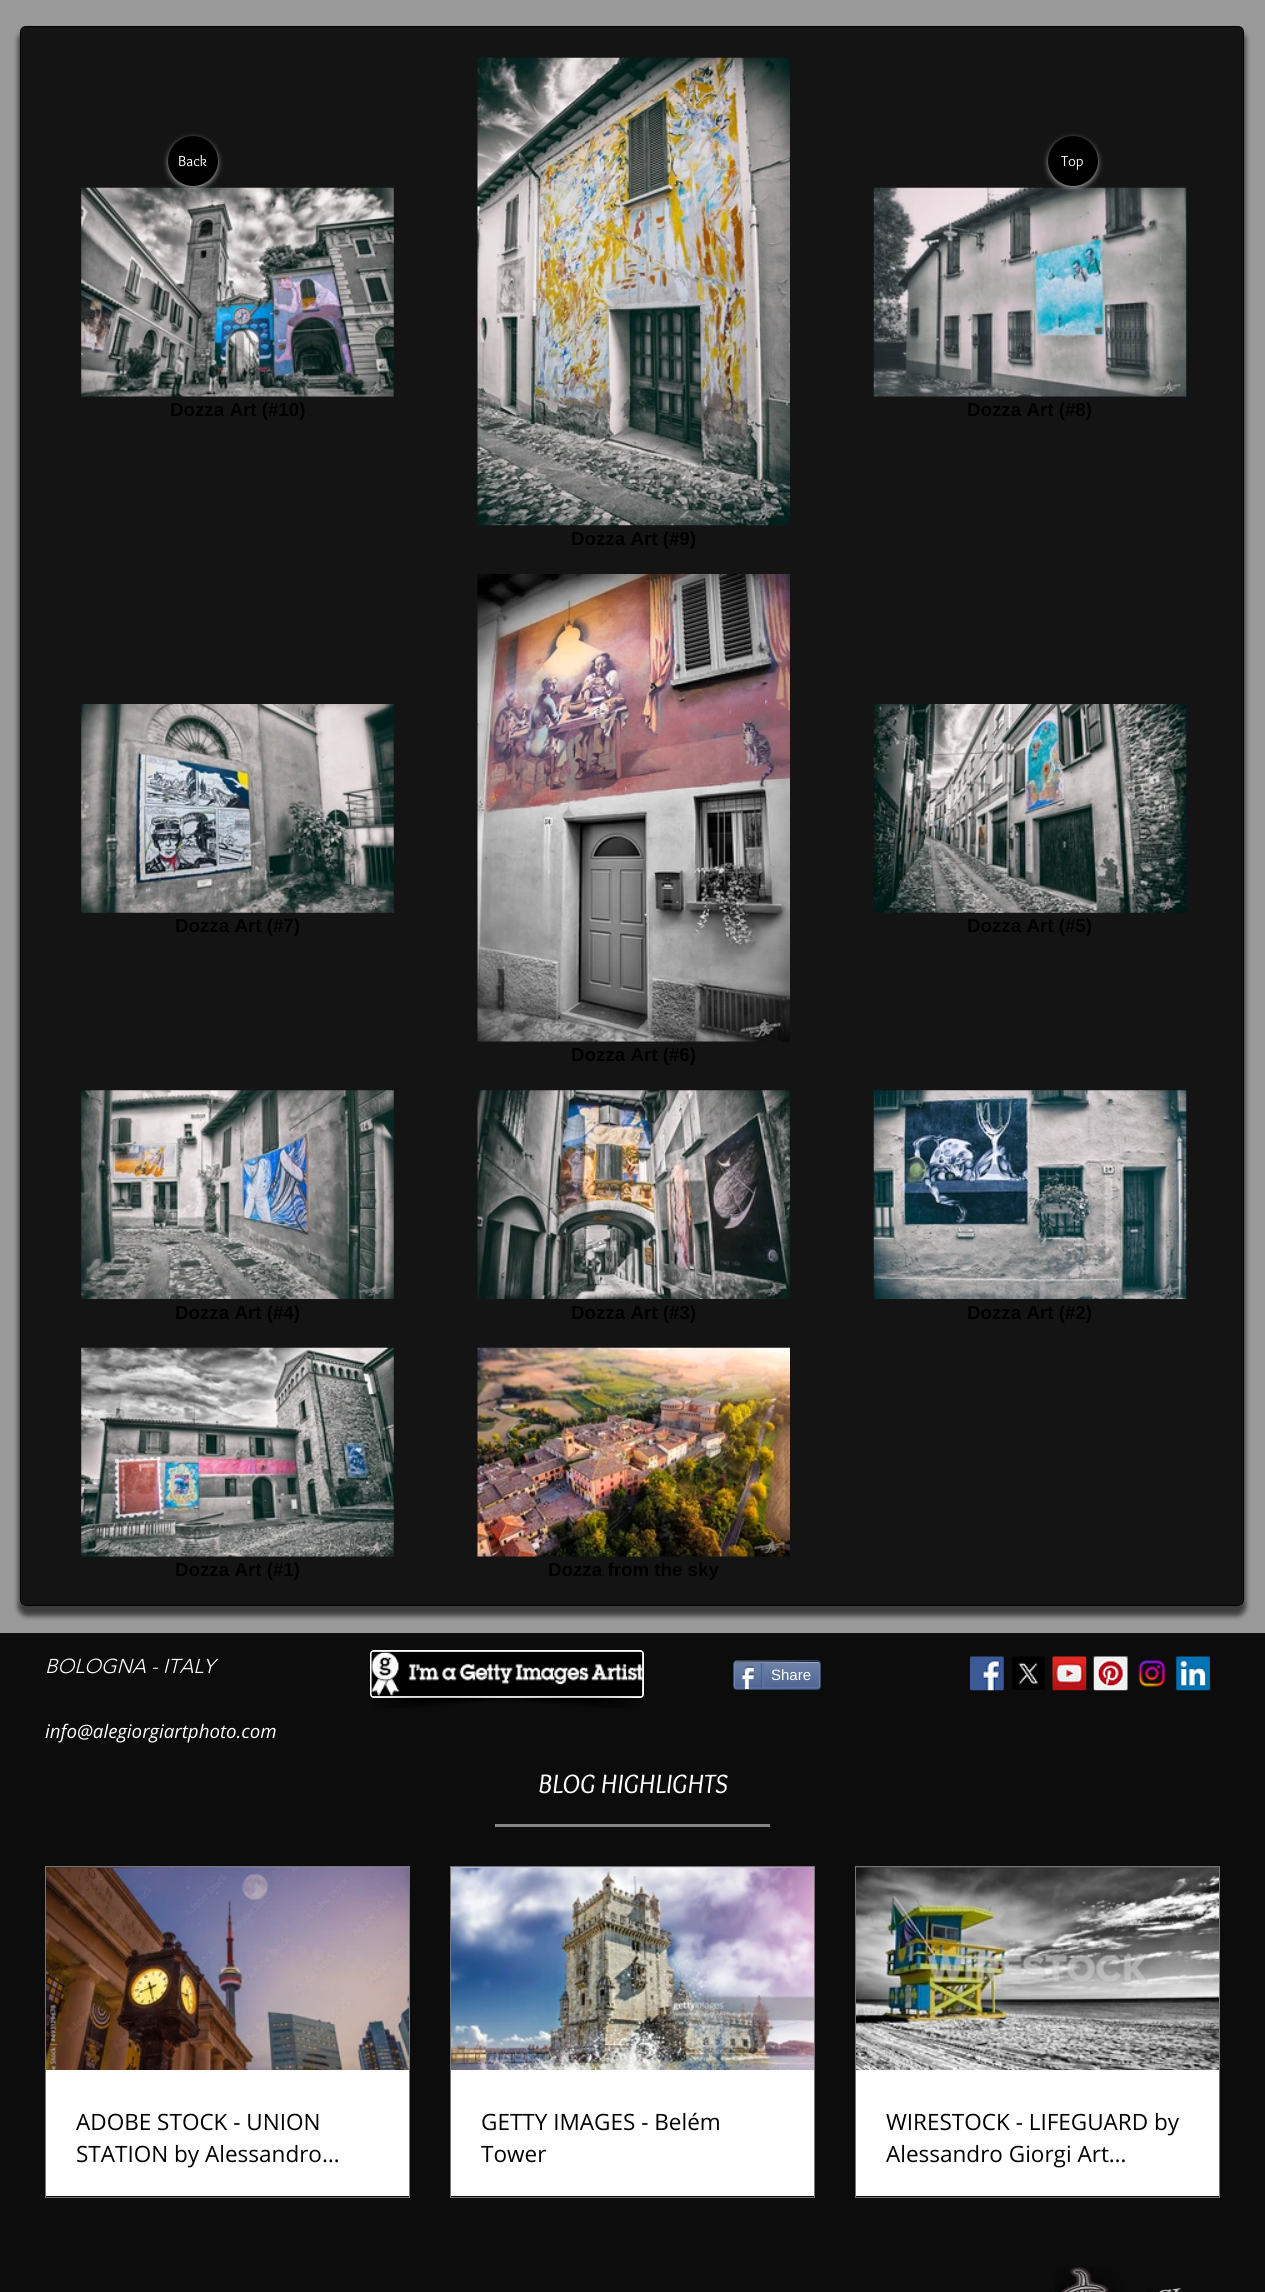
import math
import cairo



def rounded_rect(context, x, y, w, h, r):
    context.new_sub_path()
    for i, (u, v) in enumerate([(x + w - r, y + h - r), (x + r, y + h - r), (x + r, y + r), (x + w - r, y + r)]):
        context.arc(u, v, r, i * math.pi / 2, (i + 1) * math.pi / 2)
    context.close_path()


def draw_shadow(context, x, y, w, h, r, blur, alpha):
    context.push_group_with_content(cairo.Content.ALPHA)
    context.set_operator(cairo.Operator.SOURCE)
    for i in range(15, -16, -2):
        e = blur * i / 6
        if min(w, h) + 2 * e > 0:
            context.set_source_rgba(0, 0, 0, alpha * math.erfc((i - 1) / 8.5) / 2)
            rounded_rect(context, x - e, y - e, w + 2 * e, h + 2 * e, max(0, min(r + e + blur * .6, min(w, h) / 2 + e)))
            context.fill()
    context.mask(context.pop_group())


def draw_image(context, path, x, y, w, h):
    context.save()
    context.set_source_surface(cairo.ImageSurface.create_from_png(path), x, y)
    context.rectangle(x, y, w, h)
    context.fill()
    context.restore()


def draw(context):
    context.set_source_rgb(153 / 255, 153 / 255, 153 / 255)
    context.paint()
    context.save()
    context.set_fill_rule(cairo.FillRule.EVEN_ODD)
    context.new_path()
    context.move_to(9, 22)
    context.line_to(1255, 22)
    context.line_to(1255, 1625)
    context.line_to(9, 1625)
    context.close_path()
    context.move_to(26, 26)
    context.line_to(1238, 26)
    context.curve_to(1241.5, 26, 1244, 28.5, 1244, 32)
    context.line_to(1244, 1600)
    context.curve_to(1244, 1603.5, 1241.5, 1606, 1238, 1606)
    context.line_to(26, 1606)
    context.curve_to(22.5, 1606, 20, 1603.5, 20, 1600)
    context.line_to(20, 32)
    context.curve_to(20, 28.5, 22.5, 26, 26, 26)
    context.close_path()
    context.clip()
    context.set_source_rgb(0, 0, 0)
    draw_shadow(context, 18, 31, 1228, 1585, 9, 2.5, 0.6)
    context.restore()
    context.set_source_rgba(0, 0, 0, 0.87)
    rounded_rect(context, 20.5, 26.5, 1223, 1579, 5.5)
    context.fill_preserve()
    context.set_source_rgb(0, 0, 0)
    context.set_line_width(1)
    context.stroke()
    draw_image(context, "images/1.png", 81, 187, 313, 210)
    context.set_source_rgb(1, 1, 1)
    draw_shadow(context, 168, 138, 50, 50, 25, 2.5, 0.6)
    context.set_source_rgb(0, 0, 0)
    context.arc(193, 161, 25, 0, 2 * math.pi)
    context.fill()
    draw_image(context, "images/2.png", 873, 187, 314, 210)
    context.set_source_rgb(1, 1, 1)
    draw_shadow(context, 1048, 138, 50, 50, 25, 2.5, 0.6)
    context.set_source_rgb(0, 0, 0)
    context.arc(1073, 161, 25, 0, 2 * math.pi)
    context.fill()
    draw_image(context, "images/3.png", 477, 57, 313, 469)
    draw_image(context, "images/4.png", 81, 704, 313, 209)
    draw_image(context, "images/5.png", 873, 704, 314, 209)
    draw_image(context, "images/6.png", 477, 574, 313, 468)
    draw_image(context, "images/7.png", 81, 1090, 313, 209)
    draw_image(context, "images/8.png", 477, 1090, 313, 209)
    draw_image(context, "images/9.png", 873, 1090, 314, 209)
    draw_image(context, "images/10.png", 81, 1347, 313, 210)
    draw_image(context, "images/11.png", 477, 1347, 313, 210)
    context.set_source_rgb(12 / 255, 12 / 255, 12 / 255)
    context.rectangle(0, 1633, 1265, 659)
    context.fill()
    context.set_source_rgb(1, 1, 1)
    rounded_rect(context, 370.5, 1650.5, 273, 47, 3.5)
    context.fill_preserve()
    context.stroke()
    draw_image(context, "images/12.png", 371, 1651, 272, 46)
    draw_image(context, "images/13.png", 374, 1697, 155, 11)
    draw_image(context, "images/14.png", 485, 1697, 154, 11)
    rounded_rect(context, 733.5, 1660.5, 87, 29, 3.5)
    context.set_source_rgb(45 / 255, 69 / 255, 101 / 255)
    context.stroke()
    draw_image(context, "images/15.png", 733, 1662, 87, 27)
    context.new_path()
    context.move_to(735, 1662.5)
    context.line_to(736, 1662)
    context.line_to(819, 1662.5)
    context.set_source_rgb(154 / 255, 171 / 255, 198 / 255)
    context.set_line_width(1.2)
    context.stroke()
    context.new_path()
    context.move_to(819, 1662.5)
    context.line_to(819.5, 1664)
    context.line_to(819.5, 1686)
    context.line_to(819, 1687.5)
    context.set_source_rgb(111 / 255, 131 / 255, 173 / 255)
    context.stroke()
    context.new_path()
    context.move_to(819, 1687.5)
    context.line_to(750, 1688)
    context.line_to(736, 1688)
    context.line_to(735, 1687.5)
    context.set_source_rgb(97 / 255, 118 / 255, 163 / 255)
    context.stroke()
    context.new_path()
    context.move_to(735, 1687.5)
    context.line_to(734.5, 1686)
    context.line_to(734.5, 1664)
    context.line_to(735, 1662.5)
    context.set_source_rgb(111 / 255, 131 / 255, 173 / 255)
    context.stroke()
    draw_image(context, "images/16.png", 741, 1666, 13, 23)
    context.set_source_rgb(66 / 255, 94 / 255, 133 / 255)
    context.rectangle(761, 1663, 1, 26)
    context.fill()
    context.set_source_rgb(97 / 255, 118 / 255, 163 / 255)
    context.rectangle(763, 1663, 1, 25)
    context.fill()
    draw_image(context, "images/17.png", 970, 1656, 34, 35)
    draw_image(context, "images/18.png", 1011, 1656, 34, 34)
    draw_image(context, "images/19.png", 1052, 1656, 35, 35)
    draw_image(context, "images/20.png", 1093, 1656, 35, 35)
    draw_image(context, "images/21.png", 1138, 1660, 28, 27)
    draw_image(context, "images/22.png", 1176, 1656, 34, 35)
    context.set_source_rgb(134 / 255, 134 / 255, 134 / 255)
    context.rectangle(495, 1824, 275, 3)
    context.fill()
    context.rectangle(45.5, 1866.5, 364, 331)
    context.set_source_rgb(118 / 255, 118 / 255, 118 / 255)
    context.set_line_width(1)
    context.stroke()
    draw_image(context, "images/23.png", 46, 1867, 363, 1)
    draw_image(context, "images/24.png", 46, 1868, 363, 202)
    context.set_source_rgb(1, 1, 1)
    context.rectangle(46, 2070, 363, 126)
    context.fill()
    context.rectangle(450.5, 1866.5, 364, 331)
    context.set_source_rgb(118 / 255, 118 / 255, 118 / 255)
    context.stroke()
    draw_image(context, "images/25.png", 451, 1867, 363, 1)
    draw_image(context, "images/26.png", 451, 1868, 363, 202)
    context.set_source_rgb(1, 1, 1)
    context.rectangle(451, 2070, 363, 126)
    context.fill()
    context.rectangle(855.5, 1866.5, 364, 331)
    context.set_source_rgb(118 / 255, 118 / 255, 118 / 255)
    context.stroke()
    draw_image(context, "images/27.png", 856, 1867, 363, 1)
    draw_image(context, "images/28.png", 856, 1868, 363, 202)
    context.set_source_rgb(1, 1, 1)
    context.rectangle(856, 2070, 363, 126)
    context.fill()
    draw_image(context, "images/29.png", 1055, 2267, 127, 25)
    context.select_font_face("Overlock")
    context.set_font_size(15)
    context.move_to(178, 166)
    context.show_text("Back")
    context.move_to(1061, 166)
    context.show_text("Top")
    context.select_font_face("Liberation Sans", cairo.FontSlant.NORMAL, cairo.FontWeight.BOLD)
    context.set_font_size(18.75)
    context.set_source_rgb(0, 0, 0)
    context.move_to(170, 416)
    context.show_text("Dozza Art (#10)")
    context.move_to(967, 416)
    context.show_text("Dozza Art (#8)")
    context.move_to(571, 545)
    context.show_text("Dozza Art (#9)")
    context.move_to(175, 932)
    context.show_text("Dozza Art (#7)")
    context.move_to(967, 932)
    context.show_text("Dozza Art (#5)")
    context.move_to(571, 1061)
    context.show_text("Dozza Art (#6)")
    context.move_to(175, 1319)
    context.show_text("Dozza Art (#4)")
    context.move_to(571, 1319)
    context.show_text("Dozza Art (#3)")
    context.move_to(967, 1319)
    context.show_text("Dozza Art (#2)")
    context.move_to(175, 1576)
    context.show_text("Dozza Art (#1)")
    context.move_to(548, 1576)
    context.show_text("Dozza from the sky")
    context.select_font_face("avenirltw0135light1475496 Light", cairo.FontSlant.ITALIC)
    context.set_font_size(20)
    context.set_source_rgb(1, 1, 1)
    context.move_to(45, 1673)
    context.show_text("BOLOGNA - ITALY")
    context.select_font_face("Liberation Sans")
    context.set_font_size(15)
    context.move_to(771, 1680)
    context.show_text("Share")
    context.select_font_face("Open Sans", cairo.FontSlant.ITALIC)
    context.set_font_size(18.75)
    context.move_to(45, 1738)
    context.show_text("info@alegiorgiartphoto.com")
    context.select_font_face("Overlock", cairo.FontSlant.ITALIC)
    context.set_font_size(27.5)
    context.move_to(538, 1793)
    context.show_text("BLOG HIGHLIGHTS")
    context.select_font_face("Open Sans")
    context.set_font_size(22.5)
    context.set_source_rgb(0, 0, 0)
    context.move_to(76, 2130)
    context.show_text("ADOBE STOCK - UNION")
    context.move_to(76, 2162)
    context.show_text("STATION by Alessandro…")
    context.move_to(481, 2130)
    context.show_text("GETTY IMAGES - Belém")
    context.move_to(481, 2162)
    context.show_text("Tower")
    context.move_to(886, 2130)
    context.show_text("WIRESTOCK - LIFEGUARD by")
    context.move_to(886, 2162)
    context.show_text("Alessandro Giorgi Art…")


surface = cairo.ImageSurface(cairo.Format.RGB24, 1265, 2292)
context = cairo.Context(surface)
options = cairo.FontOptions()
options.set_hint_metrics(cairo.HintMetrics.OFF)
options.set_hint_style(cairo.HintStyle.NONE)
context.set_font_options(options)
context.set_miter_limit(4)
draw(context)
surface.write_to_png("out.png")
